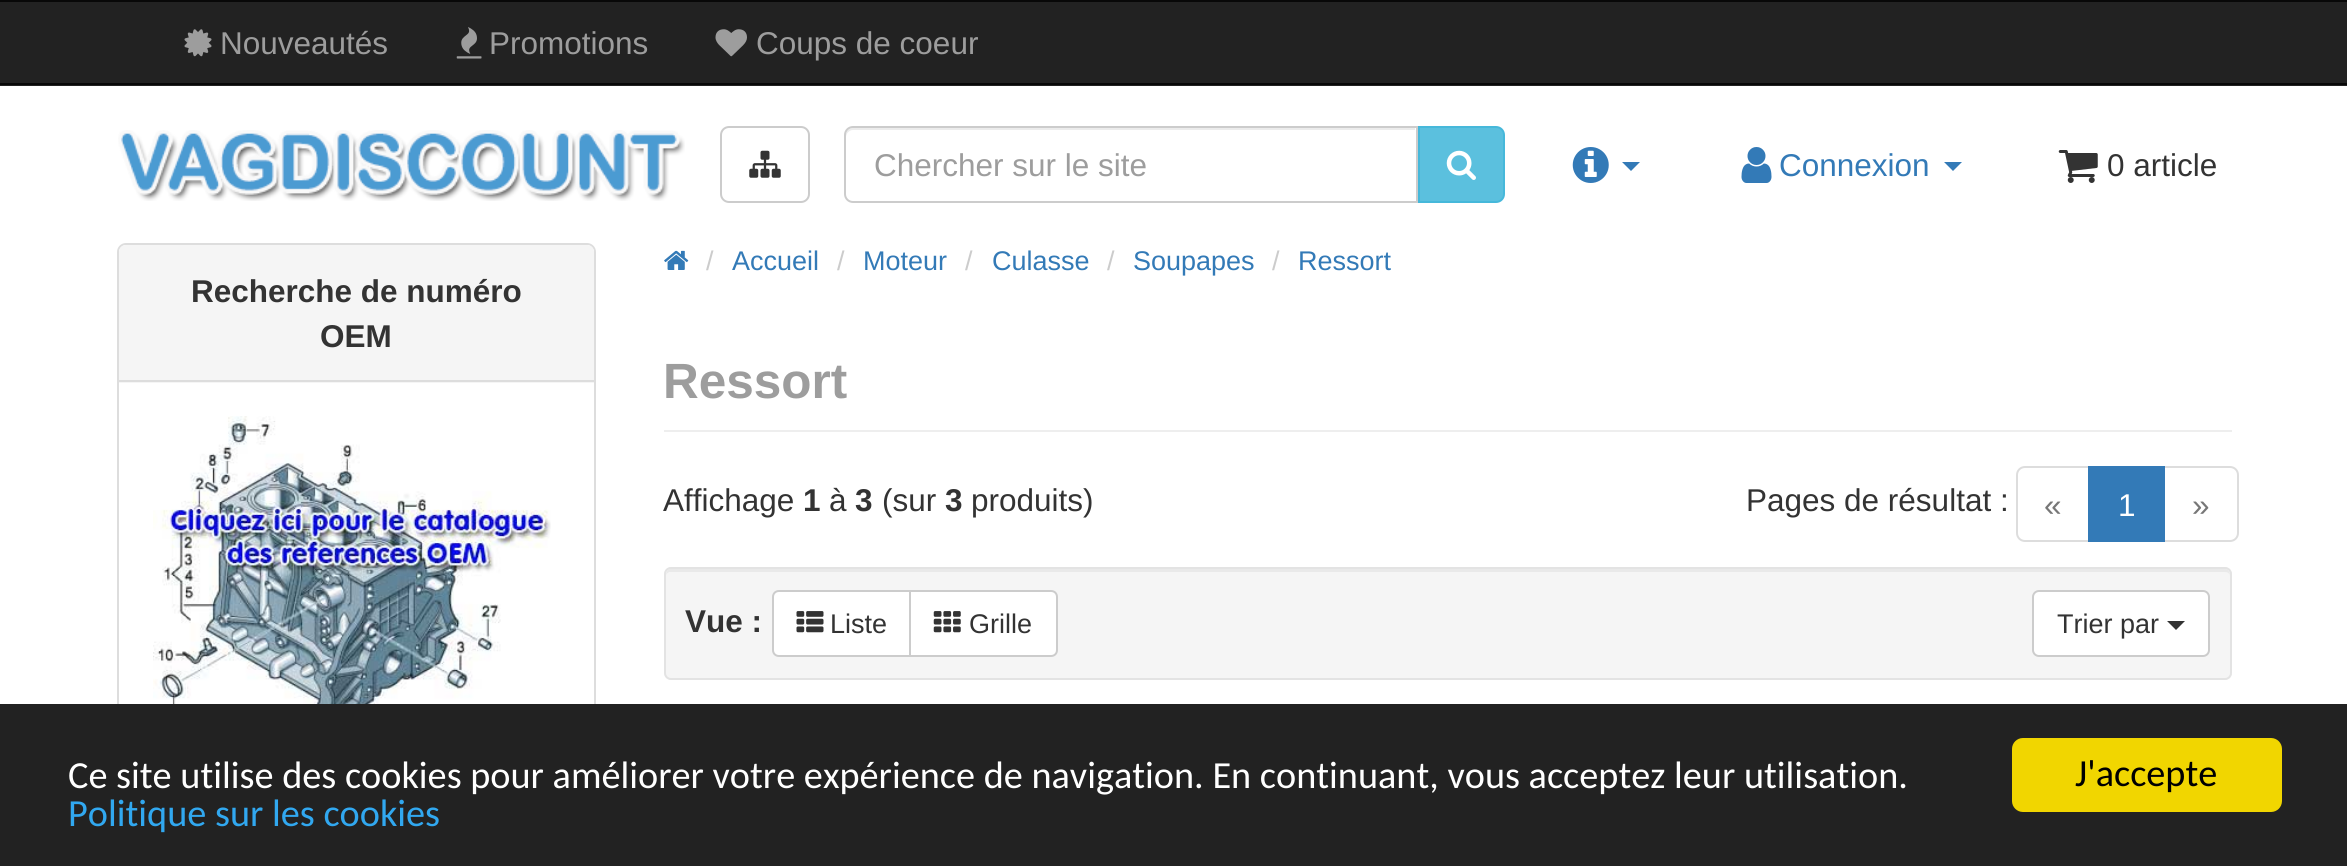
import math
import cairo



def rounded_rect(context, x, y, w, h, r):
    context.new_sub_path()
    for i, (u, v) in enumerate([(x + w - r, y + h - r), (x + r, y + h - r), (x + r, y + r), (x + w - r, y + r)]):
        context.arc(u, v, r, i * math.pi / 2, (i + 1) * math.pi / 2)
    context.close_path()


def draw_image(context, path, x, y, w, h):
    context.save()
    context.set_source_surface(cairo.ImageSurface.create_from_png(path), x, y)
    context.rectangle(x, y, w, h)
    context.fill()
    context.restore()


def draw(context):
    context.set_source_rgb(1, 1, 1)
    context.paint()
    context.set_source_rgb(34 / 255, 34 / 255, 34 / 255)
    context.rectangle(0, 2, 2347, 84)
    context.fill()
    context.set_source_rgb(8 / 255, 8 / 255, 8 / 255)
    context.rectangle(0, 0, 2347, 2)
    context.fill()
    context.rectangle(0, 83, 2347, 2)
    context.fill()
    draw_image(context, "images/1.png", 184, 29, 28, 28)
    draw_image(context, "images/2.png", 456, 27, 26, 32)
    draw_image(context, "images/3.png", 715, 29, 32, 28)
    draw_image(context, "images/4.png", 118, 130, 567, 71)
    rounded_rect(context, 721, 127, 88, 75, 8)
    context.set_source_rgb(204 / 255, 204 / 255, 204 / 255)
    context.stroke()
    draw_image(context, "images/5.png", 749, 150, 32, 28)
    context.set_source_rgb(236 / 255, 236 / 255, 236 / 255)
    context.new_path()
    context.move_to(853, 130)
    context.line_to(1415, 130)
    context.line_to(1415, 128)
    context.line_to(853, 128)
    context.curve_to(849, 128, 846, 131, 846, 135)
    context.line_to(846, 137)
    context.curve_to(846, 134, 849, 130, 853, 130)
    context.close_path()
    context.fill()
    context.new_path()
    context.move_to(853, 127)
    context.line_to(1417, 127)
    context.line_to(1417, 202)
    context.line_to(853, 202)
    context.curve_to(848.5, 202, 845, 198.5, 845, 194)
    context.line_to(845, 135)
    context.curve_to(845, 130.5, 848.5, 127, 853, 127)
    context.close_path()
    context.set_source_rgb(204 / 255, 204 / 255, 204 / 255)
    context.stroke()
    context.set_source_rgb(91 / 255, 192 / 255, 222 / 255)
    context.new_path()
    context.move_to(1419, 127)
    context.line_to(1496, 127)
    context.curve_to(1500.5, 127, 1504, 130.5, 1504, 135)
    context.line_to(1504, 194)
    context.curve_to(1504, 198.5, 1500.5, 202, 1496, 202)
    context.line_to(1419, 202)
    context.close_path()
    context.fill_preserve()
    context.set_source_rgb(70 / 255, 184 / 255, 218 / 255)
    context.stroke()
    draw_image(context, "images/6.png", 1446, 150, 30, 30)
    draw_image(context, "images/7.png", 1572, 147, 37, 36)
    context.set_source_rgb(51 / 255, 122 / 255, 183 / 255)
    context.new_path()
    context.move_to(1622, 162)
    context.line_to(1640, 162)
    context.line_to(1631, 171)
    context.close_path()
    context.fill()
    draw_image(context, "images/8.png", 1741, 147, 31, 36)
    context.new_path()
    context.move_to(1944, 162)
    context.line_to(1962, 162)
    context.line_to(1953, 171)
    context.close_path()
    context.fill()
    draw_image(context, "images/9.png", 2058, 150, 40, 33)
    rounded_rect(context, 118, 244, 477, 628, 8)
    context.set_source_rgb(221 / 255, 221 / 255, 221 / 255)
    context.stroke()
    context.set_source_rgb(245 / 255, 245 / 255, 245 / 255)
    context.new_path()
    context.move_to(126, 245)
    context.line_to(587, 245)
    context.curve_to(591, 245, 594, 248, 594, 252)
    context.line_to(594, 383)
    context.line_to(119, 383)
    context.line_to(119, 252)
    context.curve_to(119, 248, 122, 245, 126, 245)
    context.close_path()
    context.fill()
    context.set_source_rgb(221 / 255, 221 / 255, 221 / 255)
    context.rectangle(119, 380, 475, 2)
    context.fill()
    draw_image(context, "images/10.png", 153, 416, 398, 288)
    draw_image(context, "images/11.png", 664, 250, 25, 20)
    context.set_source_rgb(238 / 255, 238 / 255, 238 / 255)
    context.rectangle(664, 430, 1568, 2)
    context.fill()
    context.new_path()
    context.move_to(2025, 467)
    context.line_to(2089, 467)
    context.line_to(2089, 541)
    context.line_to(2025, 541)
    context.curve_to(2020.5, 541, 2017, 537.5, 2017, 533)
    context.line_to(2017, 475)
    context.curve_to(2017, 470.5, 2020.5, 467, 2025, 467)
    context.close_path()
    context.set_source_rgb(221 / 255, 221 / 255, 221 / 255)
    context.stroke()
    context.new_path()
    context.move_to(2163, 467)
    context.line_to(2230, 467)
    context.curve_to(2234.5, 467, 2238, 470.5, 2238, 475)
    context.line_to(2238, 533)
    context.curve_to(2238, 537.5, 2234.5, 541, 2230, 541)
    context.line_to(2163, 541)
    context.close_path()
    context.stroke()
    context.set_source_rgb(51 / 255, 122 / 255, 183 / 255)
    context.rectangle(2088, 466, 77, 76)
    context.fill()
    context.set_source_rgb(245 / 255, 245 / 255, 245 / 255)
    rounded_rect(context, 664, 567, 1568, 113, 7)
    context.fill()
    context.set_source_rgb(233 / 255, 233 / 255, 233 / 255)
    context.new_path()
    context.move_to(670, 572)
    context.line_to(2225, 572)
    context.curve_to(2228, 572, 2230, 574, 2230, 576)
    context.curve_to(2230, 573, 2229, 569, 2225, 569)
    context.line_to(671, 569)
    context.curve_to(667, 569, 666, 573, 666, 576)
    context.curve_to(666, 574, 668, 572, 670, 572)
    context.close_path()
    context.fill()
    rounded_rect(context, 665, 568, 1566, 111, 6)
    context.set_source_rgb(227 / 255, 227 / 255, 227 / 255)
    context.stroke()
    context.set_source_rgb(1, 1, 1)
    context.new_path()
    context.move_to(779, 591)
    context.line_to(910, 591)
    context.line_to(910, 656)
    context.line_to(779, 656)
    context.curve_to(775.5, 656, 773, 653.5, 773, 650)
    context.line_to(773, 597)
    context.curve_to(773, 593.5, 775.5, 591, 779, 591)
    context.close_path()
    context.fill_preserve()
    context.set_source_rgb(204 / 255, 204 / 255, 204 / 255)
    context.stroke()
    draw_image(context, "images/12.png", 796, 611, 28, 22)
    context.set_source_rgb(1, 1, 1)
    context.new_path()
    context.move_to(910, 591)
    context.line_to(1051, 591)
    context.curve_to(1054.5, 591, 1057, 593.5, 1057, 597)
    context.line_to(1057, 650)
    context.curve_to(1057, 653.5, 1054.5, 656, 1051, 656)
    context.line_to(910, 656)
    context.close_path()
    context.fill_preserve()
    context.set_source_rgb(204 / 255, 204 / 255, 204 / 255)
    context.stroke()
    draw_image(context, "images/13.png", 933, 611, 28, 22)
    context.set_source_rgb(1, 1, 1)
    rounded_rect(context, 2033, 591, 176, 65, 6)
    context.fill_preserve()
    context.set_source_rgb(204 / 255, 204 / 255, 204 / 255)
    context.stroke()
    context.set_source_rgb(51 / 255, 51 / 255, 51 / 255)
    context.new_path()
    context.move_to(2167, 621)
    context.line_to(2185, 621)
    context.line_to(2176, 630)
    context.close_path()
    context.fill()
    context.set_source_rgb(34 / 255, 34 / 255, 34 / 255)
    context.rectangle(0, 704, 2347, 162)
    context.fill()
    context.set_source_rgb(241 / 255, 214 / 255, 0)
    rounded_rect(context, 2012, 738, 270, 74, 11)
    context.fill()
    context.select_font_face("Liberation Sans")
    context.set_font_size(31.5)
    context.set_source_rgb(157 / 255, 157 / 255, 157 / 255)
    context.move_to(220, 54)
    context.show_text("Nouveautés")
    context.move_to(489, 54)
    context.show_text("Promotions")
    context.move_to(756, 54)
    context.show_text("Coups de coeur")
    context.move_to(874, 176)
    context.show_text("Chercher sur le site")
    context.set_source_rgb(51 / 255, 122 / 255, 183 / 255)
    context.move_to(1779, 176)
    context.show_text("Connexion")
    context.set_source_rgb(51 / 255, 51 / 255, 51 / 255)
    context.move_to(2107, 176)
    context.show_text("0 article")
    context.select_font_face("Liberation Sans", cairo.FontSlant.NORMAL, cairo.FontWeight.BOLD)
    context.move_to(191, 302)
    context.show_text("Recherche de numéro")
    context.move_to(320, 347)
    context.show_text("OEM")
    context.select_font_face("Liberation Sans")
    context.set_font_size(27)
    context.set_source_rgb(204 / 255, 204 / 255, 204 / 255)
    context.move_to(706, 270)
    context.show_text("/")
    context.set_source_rgb(51 / 255, 122 / 255, 183 / 255)
    context.move_to(732, 270)
    context.show_text("Accueil")
    context.set_source_rgb(204 / 255, 204 / 255, 204 / 255)
    context.move_to(837, 270)
    context.show_text("/")
    context.set_source_rgb(51 / 255, 122 / 255, 183 / 255)
    context.move_to(863, 270)
    context.show_text("Moteur")
    context.set_source_rgb(204 / 255, 204 / 255, 204 / 255)
    context.move_to(965, 270)
    context.show_text("/")
    context.set_source_rgb(51 / 255, 122 / 255, 183 / 255)
    context.move_to(992, 270)
    context.show_text("Culasse")
    context.set_source_rgb(204 / 255, 204 / 255, 204 / 255)
    context.move_to(1107, 270)
    context.show_text("/")
    context.set_source_rgb(51 / 255, 122 / 255, 183 / 255)
    context.move_to(1133, 270)
    context.show_text("Soupapes")
    context.set_source_rgb(204 / 255, 204 / 255, 204 / 255)
    context.move_to(1272, 270)
    context.show_text("/")
    context.set_source_rgb(51 / 255, 122 / 255, 183 / 255)
    context.move_to(1298, 270)
    context.show_text("Ressort")
    context.select_font_face("Liberation Sans", cairo.FontSlant.NORMAL, cairo.FontWeight.BOLD)
    context.set_font_size(49.5)
    context.set_source_rgb(157 / 255, 157 / 255, 157 / 255)
    context.move_to(663, 398)
    context.show_text("Ressort")
    context.select_font_face("Liberation Sans")
    context.set_font_size(31.5)
    context.set_source_rgb(51 / 255, 51 / 255, 51 / 255)
    context.move_to(663, 511)
    context.show_text("Affichage")
    context.select_font_face("Liberation Sans", cairo.FontSlant.NORMAL, cairo.FontWeight.BOLD)
    context.move_to(803, 511)
    context.show_text("1")
    context.select_font_face("Liberation Sans")
    context.move_to(829, 511)
    context.show_text("à")
    context.select_font_face("Liberation Sans", cairo.FontSlant.NORMAL, cairo.FontWeight.BOLD)
    context.move_to(855, 511)
    context.show_text("3")
    context.select_font_face("Liberation Sans")
    context.move_to(882, 511)
    context.show_text("(sur")
    context.select_font_face("Liberation Sans", cairo.FontSlant.NORMAL, cairo.FontWeight.BOLD)
    context.move_to(945, 511)
    context.show_text("3")
    context.select_font_face("Liberation Sans")
    context.move_to(971, 511)
    context.show_text("produits)")
    context.move_to(1746, 511)
    context.show_text("Pages de résultat :")
    context.set_source_rgb(119 / 255, 119 / 255, 119 / 255)
    context.move_to(2044, 516)
    context.show_text("«")
    context.set_source_rgb(1, 1, 1)
    context.move_to(2118, 516)
    context.show_text("1")
    context.set_source_rgb(119 / 255, 119 / 255, 119 / 255)
    context.move_to(2192, 516)
    context.show_text("»")
    context.select_font_face("Liberation Sans", cairo.FontSlant.NORMAL, cairo.FontWeight.BOLD)
    context.set_source_rgb(51 / 255, 51 / 255, 51 / 255)
    context.move_to(685, 632)
    context.show_text("Vue :")
    context.select_font_face("Liberation Sans")
    context.set_font_size(27)
    context.move_to(830, 633)
    context.show_text("Liste")
    context.move_to(969, 633)
    context.show_text("Grille")
    context.move_to(2057, 633)
    context.show_text("Trier par")
    context.select_font_face("Carlito")
    context.set_font_size(38.25)
    context.set_source_rgb(1, 1, 1)
    context.move_to(68, 788)
    context.show_text("Ce site utilise des cookies pour améliorer votre expérience de navigation. En continuant, vous acceptez leur utilisation.")
    context.set_source_rgb(49 / 255, 168 / 255, 240 / 255)
    context.move_to(68, 826)
    context.show_text("Politique sur les cookies")
    context.set_source_rgb(0, 0, 0)
    context.move_to(2075, 786)
    context.show_text("J'accepte")


surface = cairo.ImageSurface(cairo.Format.RGB24, 2347, 866)
context = cairo.Context(surface)
options = cairo.FontOptions()
options.set_hint_metrics(cairo.HintMetrics.OFF)
options.set_hint_style(cairo.HintStyle.NONE)
context.set_font_options(options)
context.set_miter_limit(4)
draw(context)
surface.write_to_png("out.png")
